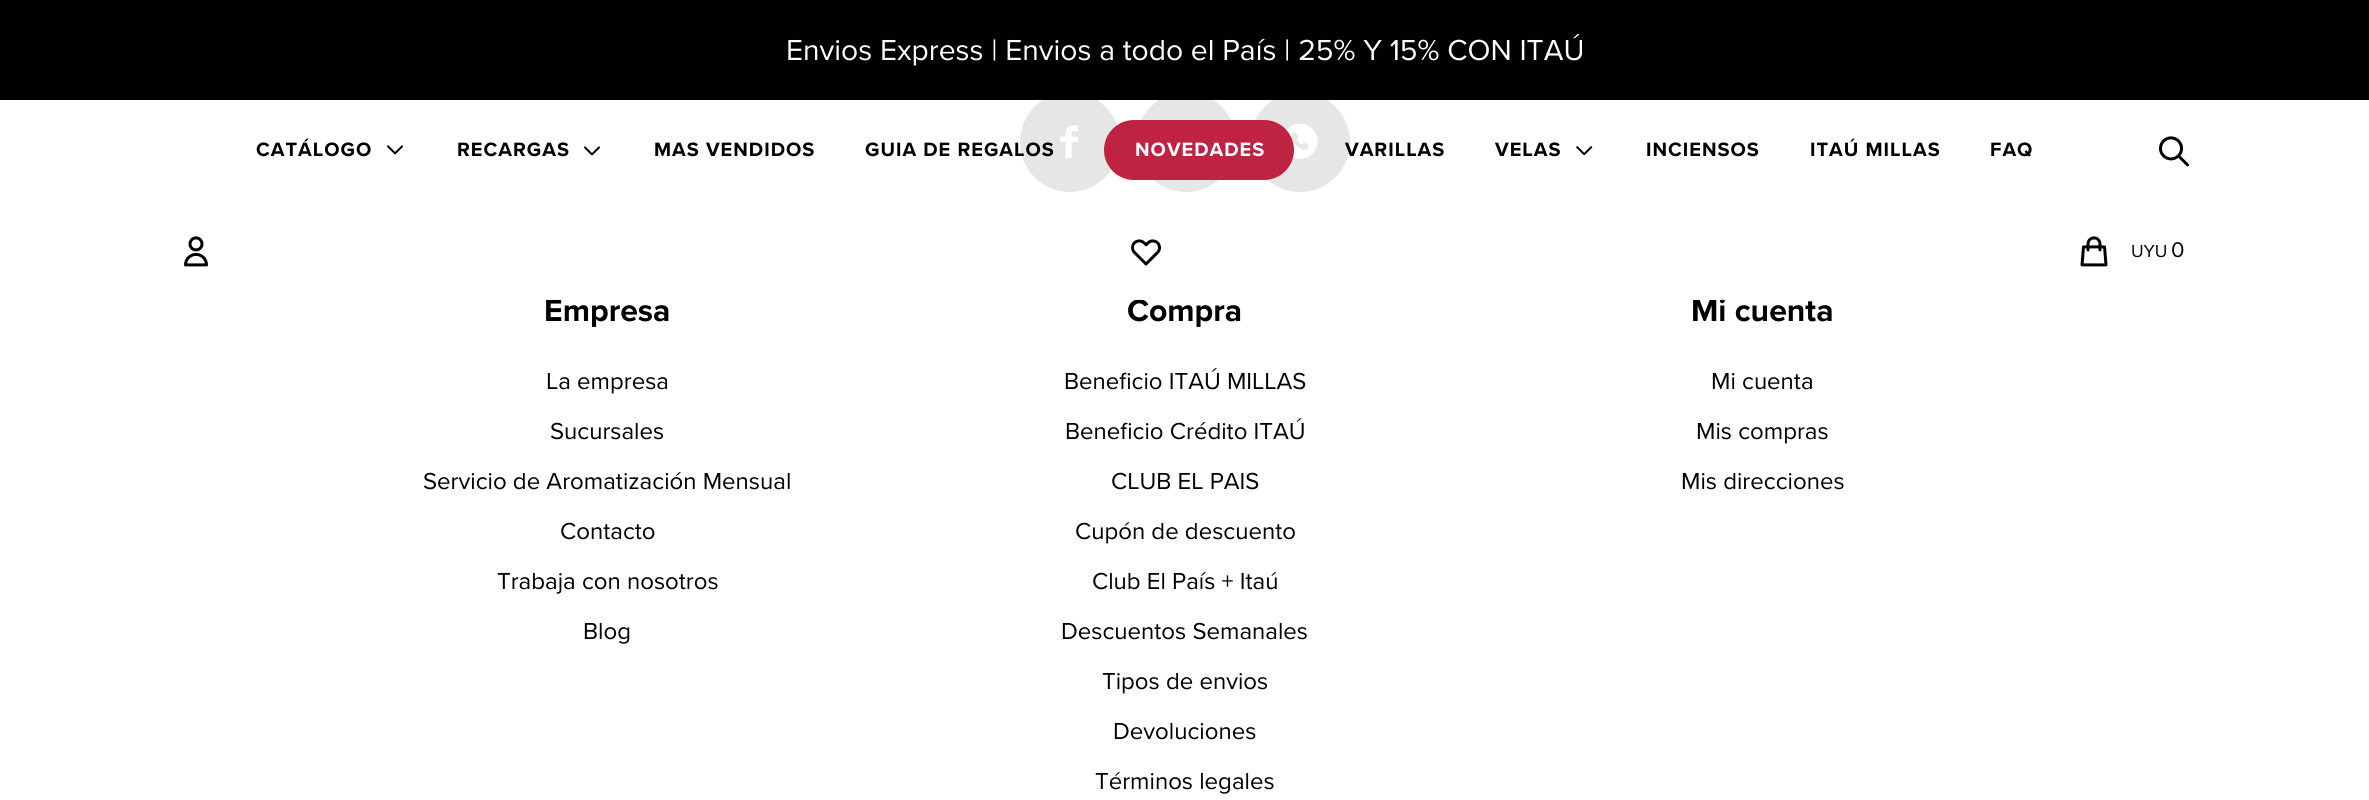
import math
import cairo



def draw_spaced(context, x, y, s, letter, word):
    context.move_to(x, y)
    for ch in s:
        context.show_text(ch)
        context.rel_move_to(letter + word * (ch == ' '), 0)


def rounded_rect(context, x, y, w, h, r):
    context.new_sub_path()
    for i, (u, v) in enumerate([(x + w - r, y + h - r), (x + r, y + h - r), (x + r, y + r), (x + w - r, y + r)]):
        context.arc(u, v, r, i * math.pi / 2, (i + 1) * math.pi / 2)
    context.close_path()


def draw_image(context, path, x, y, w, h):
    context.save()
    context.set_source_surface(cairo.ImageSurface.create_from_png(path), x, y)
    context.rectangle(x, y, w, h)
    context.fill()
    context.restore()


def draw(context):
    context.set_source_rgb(1, 1, 1)
    context.paint()
    context.set_source_rgb(0, 0, 0)
    context.arc(1070, 142, 50, 0, 2 * math.pi)
    context.fill()
    context.arc(1186, 142, 50, 0, 2 * math.pi)
    context.fill()
    context.arc(1300, 142, 50, 0, 2 * math.pi)
    context.fill()
    context.rectangle(0, 0, 2369, 100)
    context.fill()
    draw_image(context, "images/1.png", 387, 145, 16, 10)
    draw_image(context, "images/4.png", 2159, 136, 30, 31)
    draw_image(context, "images/5.png", 184, 236, 24, 31)
    draw_image(context, "images/7.png", 2080, 236, 28, 31)
    draw_image(context, "images/8.png", 1060, 125, 18, 33)
    draw_image(context, "images/9.png", 1286, 123, 32, 36)
    context.select_font_face("Proxima Nova")
    context.set_font_size(30)
    context.set_source_rgb(1, 1, 1)
    context.move_to(786, 60)
    context.show_text("Envios Express | Envios a todo el País | 25% Y 15% CON ITAÚ")
    context.select_font_face("Proxima Nova", cairo.FontSlant.NORMAL, cairo.FontWeight.BOLD)
    context.set_font_size(20)
    context.set_source_rgb(0, 0, 0)
    draw_spaced(context, 256, 156, "CATÁLOGO", 1, 0)
    draw_spaced(context, 1810, 156, "ITAÚ MILLAS", 1, 0)
    draw_spaced(context, 1990, 156, "FAQ", 1, 0)
    context.select_font_face("Proxima Nova")
    context.set_font_size(18)
    context.move_to(2131, 257)
    context.show_text("UYU")
    context.set_font_size(22)
    context.move_to(2171, 257)
    context.show_text("0")
    context.select_font_face("Proxima Nova", cairo.FontSlant.NORMAL, cairo.FontWeight.BOLD)
    context.set_font_size(32)
    context.move_to(544, 321)
    context.show_text("Empresa")
    context.select_font_face("Proxima Nova")
    context.set_font_size(24)
    context.move_to(546, 389)
    context.show_text("La empresa")
    context.move_to(550, 439)
    context.show_text("Sucursales")
    context.move_to(423, 489)
    context.show_text("Servicio de Aromatización Mensual")
    context.move_to(560, 539)
    context.show_text("Contacto")
    context.move_to(497, 589)
    context.show_text("Trabaja con nosotros")
    context.move_to(583, 639)
    context.show_text("Blog")
    context.select_font_face("Proxima Nova", cairo.FontSlant.NORMAL, cairo.FontWeight.BOLD)
    context.set_font_size(32)
    context.move_to(1127, 321)
    context.show_text("Compra")
    context.select_font_face("Proxima Nova")
    context.set_font_size(24)
    context.move_to(1064, 389)
    context.show_text("Beneficio ITAÚ MILLAS")
    context.move_to(1065, 439)
    context.show_text("Beneficio Crédito ITAÚ")
    context.move_to(1111, 489)
    context.show_text("CLUB EL PAIS")
    context.move_to(1075, 539)
    context.show_text("Cupón de descuento")
    context.move_to(1092, 589)
    context.show_text("Club El País + Itaú")
    context.move_to(1061, 639)
    context.show_text("Descuentos Semanales")
    context.move_to(1102, 689)
    context.show_text("Tipos de envios")
    context.move_to(1113, 739)
    context.show_text("Devoluciones")
    context.move_to(1095, 789)
    context.show_text("Términos legales")
    context.select_font_face("Proxima Nova", cairo.FontSlant.NORMAL, cairo.FontWeight.BOLD)
    context.set_font_size(32)
    context.move_to(1691, 321)
    context.show_text("Mi cuenta")
    context.set_source_rgba(1, 1, 1, 0.9)
    context.rectangle(546, 100, 1179, 200)
    context.fill()
    draw_image(context, "images/6.png", 1131, 239, 30, 27)
    context.set_font_size(20)
    context.set_source_rgb(0, 0, 0)
    draw_spaced(context, 1646, 156, "INCIENSOS", 1, 0)
    draw_image(context, "images/3.png", 1576, 146, 17, 10)
    draw_spaced(context, 1495, 156, "VELAS", 1, 0)
    draw_spaced(context, 1345, 156, "VARILLAS", 1, 0)
    context.set_source_rgb(192 / 255, 34 / 255, 65 / 255)
    rounded_rect(context, 1104, 120, 190, 60, 30)
    context.fill()
    context.set_source_rgb(1, 1, 1)
    draw_spaced(context, 1135, 156, "NOVEDADES", 1, 0)
    context.set_source_rgb(0, 0, 0)
    draw_spaced(context, 865, 156, "GUIA DE REGALOS", 1, 0)
    draw_spaced(context, 654, 156, "MAS VENDIDOS", 1, 0)
    draw_image(context, "images/2.png", 584, 146, 16, 10)
    draw_spaced(context, 457, 156, "RECARGAS", 1, 0)
    context.select_font_face("Proxima Nova")
    context.set_font_size(24)
    context.move_to(1711, 389)
    context.show_text("Mi cuenta")
    context.move_to(1696, 439)
    context.show_text("Mis compras")
    context.move_to(1681, 489)
    context.show_text("Mis direcciones")


surface = cairo.ImageSurface(cairo.Format.RGB24, 2369, 800)
context = cairo.Context(surface)
options = cairo.FontOptions()
options.set_hint_metrics(cairo.HintMetrics.OFF)
options.set_hint_style(cairo.HintStyle.NONE)
context.set_font_options(options)
context.set_miter_limit(4)
draw(context)
surface.write_to_png("out.png")
